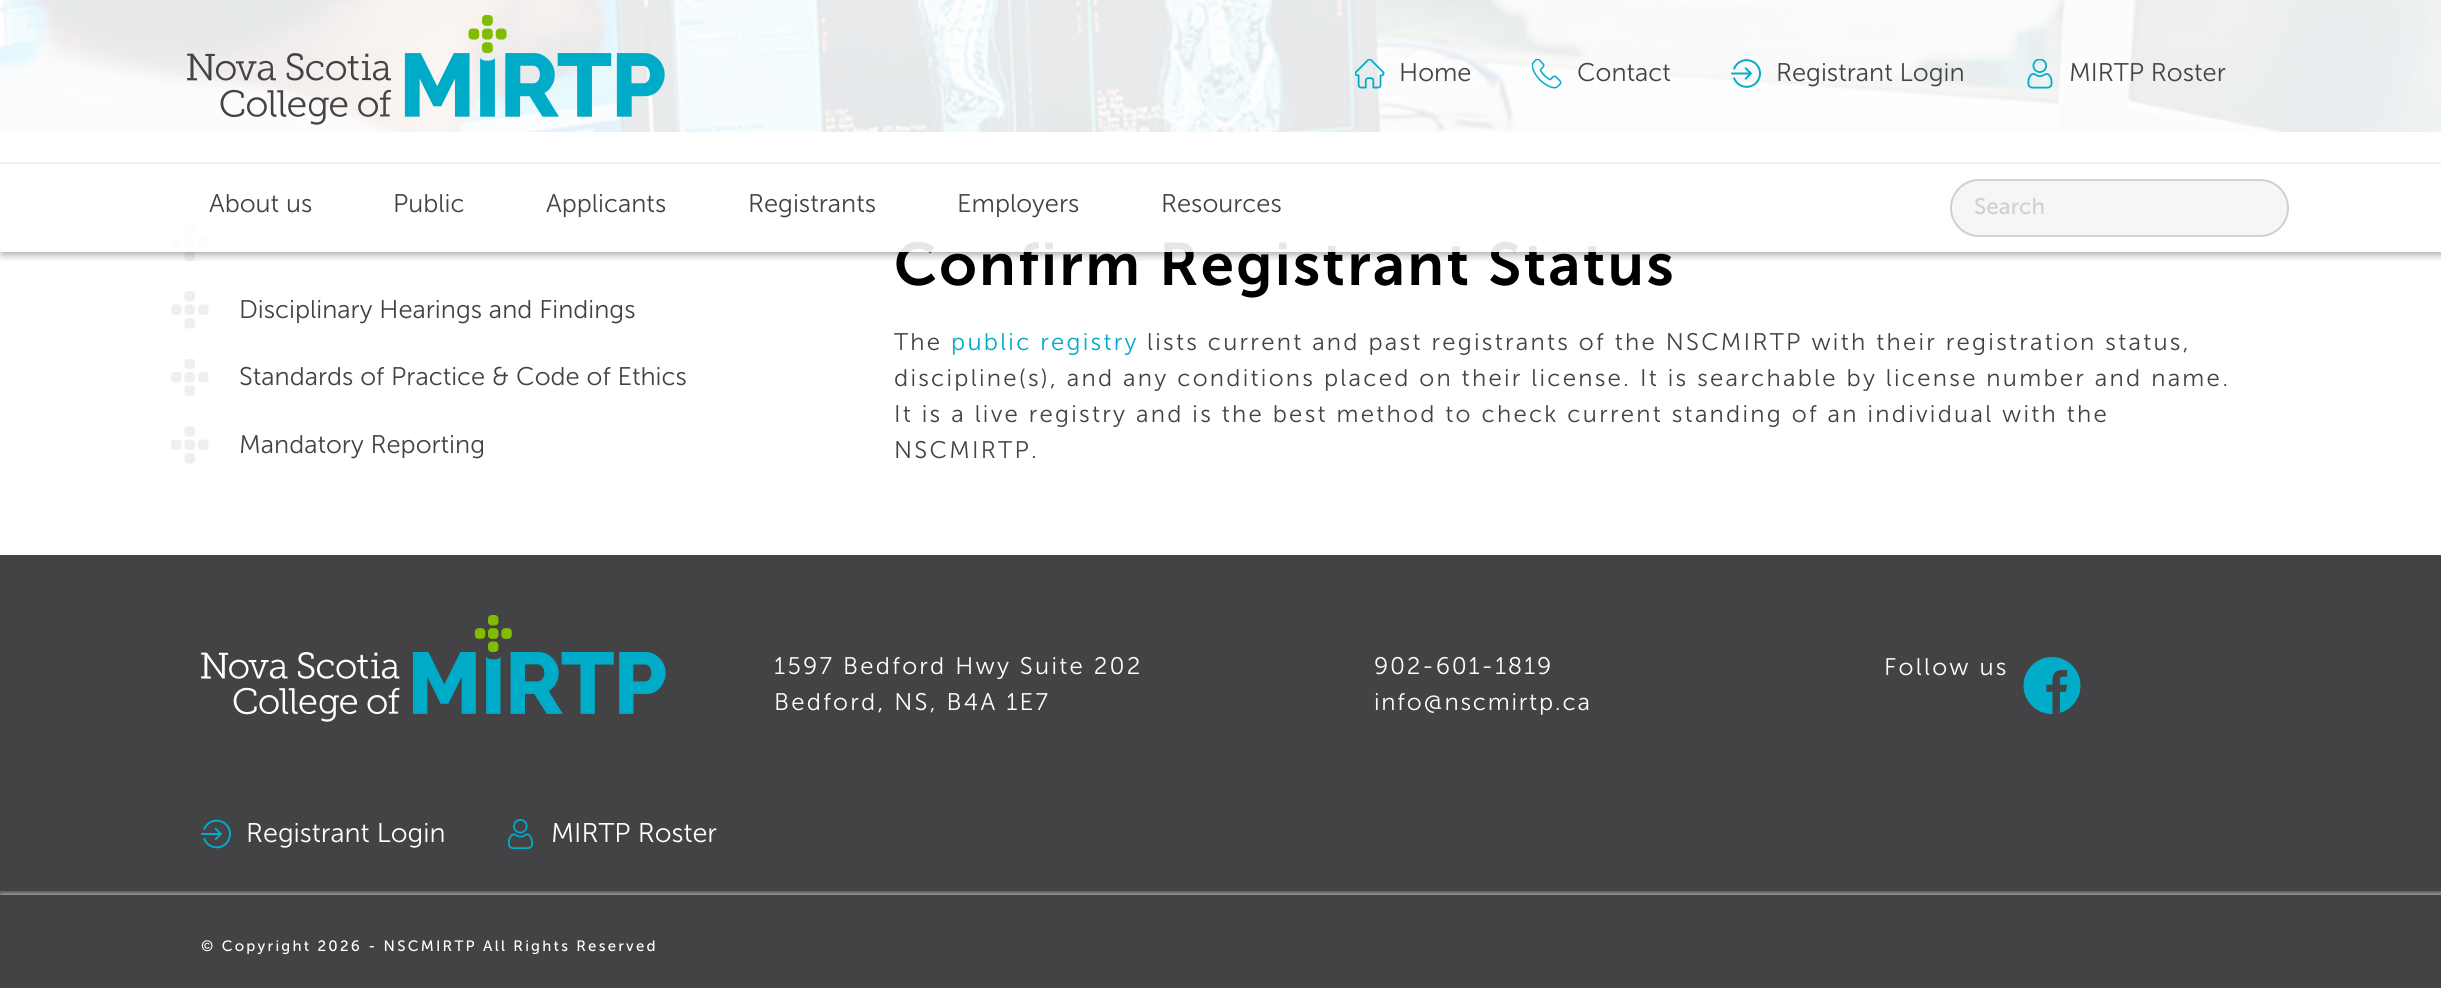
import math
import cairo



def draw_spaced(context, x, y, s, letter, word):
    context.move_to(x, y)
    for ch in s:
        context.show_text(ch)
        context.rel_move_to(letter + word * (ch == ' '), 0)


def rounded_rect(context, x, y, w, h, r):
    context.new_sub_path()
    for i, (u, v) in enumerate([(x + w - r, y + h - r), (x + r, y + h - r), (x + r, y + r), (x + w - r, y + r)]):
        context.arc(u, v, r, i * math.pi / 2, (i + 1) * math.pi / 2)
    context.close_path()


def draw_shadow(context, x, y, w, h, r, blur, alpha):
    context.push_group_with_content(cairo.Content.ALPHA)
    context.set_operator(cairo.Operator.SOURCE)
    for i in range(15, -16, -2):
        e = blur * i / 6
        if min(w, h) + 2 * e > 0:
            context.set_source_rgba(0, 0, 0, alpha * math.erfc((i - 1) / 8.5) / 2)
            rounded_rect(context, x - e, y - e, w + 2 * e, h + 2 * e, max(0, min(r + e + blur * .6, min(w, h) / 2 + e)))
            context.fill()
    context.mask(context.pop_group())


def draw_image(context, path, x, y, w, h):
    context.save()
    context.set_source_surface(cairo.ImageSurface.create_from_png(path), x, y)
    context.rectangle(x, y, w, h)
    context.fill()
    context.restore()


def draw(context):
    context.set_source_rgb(1, 1, 1)
    context.paint()
    draw_image(context, "images/1.png", 0, 0, 2441, 132)
    draw_image(context, "images/7.png", 171, 224, 38, 37)
    context.save()
    context.rectangle(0, 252, 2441, 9)
    context.clip()
    context.set_source_rgb(0, 0, 0)
    draw_shadow(context, 2, 2, 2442, 252, 0, 4.5, 0.4)
    context.restore()
    draw_image(context, "images/8.png", 171, 291, 38, 38)
    draw_image(context, "images/7.png", 171, 359, 38, 37)
    draw_image(context, "images/8.png", 171, 426, 38, 38)
    context.set_source_rgb(67 / 255, 66 / 255, 68 / 255)
    context.rectangle(0, 555, 2441, 433)
    context.fill()
    draw_image(context, "images/9.png", 201, 615, 465, 107)
    draw_image(context, "images/10.png", 2023, 657, 58, 57)
    draw_image(context, "images/11.png", 201, 819, 30, 30)
    draw_image(context, "images/12.png", 507, 819, 26, 30)
    context.set_source_rgb(104 / 255, 103 / 255, 104 / 255)
    context.rectangle(0, 891, 2441, 2)
    context.fill()
    context.set_source_rgb(135 / 255, 135 / 255, 136 / 255)
    context.rectangle(0, 893, 2441, 2)
    context.fill()
    context.set_source_rgb(104 / 255, 103 / 255, 104 / 255)
    context.rectangle(0, 891, 2, 3)
    context.fill()
    context.select_font_face("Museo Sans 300 Light")
    context.set_font_size(25.5)
    context.set_source_rgb(67 / 255, 66 / 255, 68 / 255)
    context.move_to(239, 318)
    context.show_text("Disciplinary Hearings and Findings")
    context.move_to(239, 385)
    context.show_text("Standards of Practice & Code of Ethics")
    context.move_to(239, 453)
    context.show_text("Mandatory Reporting")
    context.select_font_face("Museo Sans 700 SemiBold")
    context.set_font_size(60)
    context.set_source_rgb(0, 0, 0)
    draw_spaced(context, 894, 285, "Confirm Registrant Status", 2.25, 0)
    context.set_source_rgba(1, 1, 1, 0.9)
    context.rectangle(0, 0, 2441, 252)
    context.fill()
    context.select_font_face("Museo Sans 300 Light")
    context.set_font_size(25.5)
    context.set_source_rgb(67 / 255, 66 / 255, 68 / 255)
    context.move_to(1161, 212)
    context.show_text("Resources")
    context.move_to(957, 212)
    context.show_text("Employers")
    context.move_to(748, 212)
    context.show_text("Registrants")
    context.move_to(546, 212)
    context.show_text("Applicants")
    context.move_to(393, 212)
    context.show_text("Public")
    context.move_to(209, 212)
    context.show_text("About us")
    draw_image(context, "images/6.png", 2027, 59, 26, 30)
    draw_image(context, "images/5.png", 1731, 59, 30, 29)
    draw_image(context, "images/4.png", 1532, 59, 30, 30)
    draw_image(context, "images/3.png", 1355, 59, 30, 30)
    context.set_source_rgb(246 / 255, 246 / 255, 246 / 255)
    rounded_rect(context, 1951, 180, 337, 56, 28)
    context.fill_preserve()
    context.set_source_rgb(208 / 255, 208 / 255, 208 / 255)
    context.stroke()
    context.select_font_face("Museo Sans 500")
    context.set_font_size(22.5)
    context.move_to(1974, 214)
    context.show_text("Search")
    context.select_font_face("Museo Sans 300 Light")
    context.set_font_size(25.5)
    context.set_source_rgb(67 / 255, 66 / 255, 68 / 255)
    context.move_to(2069, 81)
    context.show_text("MIRTP Roster")
    context.move_to(1776, 81)
    context.show_text("Registrant Login")
    context.move_to(1577, 81)
    context.show_text("Contact")
    context.move_to(1399, 81)
    context.show_text("Home")
    draw_image(context, "images/2.png", 187, 15, 478, 110)
    context.set_source_rgb(238 / 255, 239 / 255, 240 / 255)
    context.rectangle(0, 162, 2441, 2)
    context.fill()
    context.set_font_size(24)
    context.set_source_rgb(67 / 255, 66 / 255, 68 / 255)
    draw_spaced(context, 894, 350, "The", 2.25, 0)
    context.set_source_rgb(0, 172 / 255, 200 / 255)
    draw_spaced(context, 951, 350, "public registry", 2.25, 0)
    context.set_source_rgb(67 / 255, 66 / 255, 68 / 255)
    draw_spaced(context, 1147, 350, "lists current and past registrants of the NSCMIRTP with their registration status,", 2.25, 0)
    draw_spaced(context, 894, 386, "discipline(s), and any conditions placed on their license. It is searchable by license number and name.", 2.25, 0)
    draw_spaced(context, 894, 422, "It is a live registry and is the best method to check current standing of an individual with the", 2.25, 0)
    draw_spaced(context, 894, 458, "NSCMIRTP.", 2.25, 0)
    context.set_source_rgb(1, 1, 1)
    draw_spaced(context, 774, 674, "1597 Bedford Hwy Suite 202", 2.25, 0)
    draw_spaced(context, 774, 710, "Bedford, NS, B4A 1E7", 2.25, 0)
    draw_spaced(context, 1374, 674, "902-601-1819", 1.75, 0)
    draw_spaced(context, 1374, 710, "info@nscmirtp.ca", 1.75, 0)
    draw_spaced(context, 1884, 675, "Follow us", 2.25, 0)
    context.set_font_size(27)
    context.move_to(246, 842)
    context.show_text("Registrant Login")
    context.move_to(551, 842)
    context.show_text("MIRTP Roster")
    context.select_font_face("Museo Sans 500")
    context.set_font_size(15)
    draw_spaced(context, 201, 951, "© Copyright 2026 - NSCMIRTP All Rights Reserved", 2.25, 0)


surface = cairo.ImageSurface(cairo.Format.RGB24, 2441, 988)
context = cairo.Context(surface)
options = cairo.FontOptions()
options.set_hint_metrics(cairo.HintMetrics.OFF)
options.set_hint_style(cairo.HintStyle.NONE)
context.set_font_options(options)
context.set_miter_limit(4)
draw(context)
surface.write_to_png("out.png")
